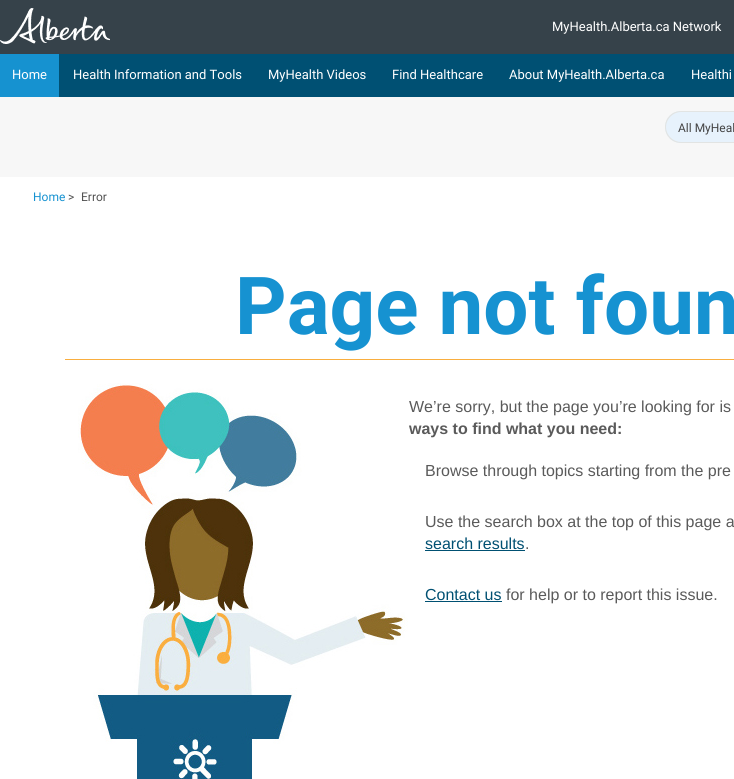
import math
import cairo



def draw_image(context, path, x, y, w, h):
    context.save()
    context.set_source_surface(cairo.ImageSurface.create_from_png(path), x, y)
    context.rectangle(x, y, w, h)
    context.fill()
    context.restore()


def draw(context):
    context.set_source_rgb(247 / 255, 247 / 255, 247 / 255)
    context.paint()
    context.set_source_rgb(0, 80 / 255, 115 / 255)
    context.rectangle(59, 54, 675, 43)
    context.fill()
    context.set_source_rgb(54 / 255, 66 / 255, 74 / 255)
    context.rectangle(0, 0, 734, 54)
    context.fill()
    draw_image(context, "images/1.png", 0, 8, 110, 36)
    context.set_source_rgb(22 / 255, 146 / 255, 208 / 255)
    context.rectangle(0, 54, 59, 43)
    context.fill()
    context.set_source_rgb(231 / 255, 242 / 255, 252 / 255)
    context.new_path()
    context.move_to(681, 111)
    context.line_to(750, 111)
    context.line_to(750, 143)
    context.line_to(681, 143)
    context.curve_to(672, 143, 665, 136, 665, 127)
    context.curve_to(665, 118, 672, 111, 681, 111)
    context.close_path()
    context.fill()
    context.set_source_rgb(226 / 255, 228 / 255, 227 / 255)
    context.set_fill_rule(cairo.FillRule.EVEN_ODD)
    context.new_path()
    context.move_to(681, 111)
    context.line_to(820, 111)
    context.line_to(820, 143)
    context.line_to(681, 143)
    context.curve_to(672, 143, 665, 136, 665, 127)
    context.curve_to(665, 118, 672, 111, 681, 111)
    context.close_path()
    context.move_to(681, 112)
    context.line_to(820, 112)
    context.line_to(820, 142)
    context.line_to(681, 142)
    context.curve_to(673, 142, 666, 135, 666, 127)
    context.curve_to(666, 119, 673, 112, 681, 112)
    context.close_path()
    context.fill()
    context.set_source_rgb(1, 1, 1)
    context.rectangle(0, 177, 734, 602)
    context.fill()
    context.set_source_rgb(249 / 255, 174 / 255, 63 / 255)
    context.rectangle(65, 359, 669, 1)
    context.fill()
    draw_image(context, "images/2.png", 78, 383, 330, 396)
    context.set_source_rgb(0, 80 / 255, 114 / 255)
    context.rectangle(425, 550, 100, 1)
    context.fill()
    context.rectangle(425, 601, 77, 1)
    context.fill()
    context.select_font_face("Roboto")
    context.set_font_size(13)
    context.set_source_rgb(1, 1, 1)
    context.move_to(552, 31)
    context.show_text("MyHealth.Alberta.ca Network")
    context.move_to(12, 79)
    context.show_text("Home")
    context.move_to(73, 79)
    context.show_text("Health Information and Tools")
    context.move_to(268, 79)
    context.show_text("MyHealth Videos")
    context.move_to(392, 79)
    context.show_text("Find Healthcare")
    context.move_to(509, 79)
    context.show_text("About MyHealth.Alberta.ca")
    context.move_to(691, 79)
    context.show_text("Healthi")
    context.set_font_size(12)
    context.set_source_rgb(68 / 255, 68 / 255, 68 / 255)
    context.move_to(678, 132)
    context.show_text("All MyHeal")
    context.set_source_rgb(22 / 255, 146 / 255, 209 / 255)
    context.move_to(33, 201)
    context.show_text("Home")
    context.set_source_rgb(82 / 255, 82 / 255, 82 / 255)
    context.move_to(68, 201)
    context.show_text(">")
    context.move_to(81, 201)
    context.show_text("Error")
    context.select_font_face("Roboto", cairo.FontSlant.NORMAL, cairo.FontWeight.BOLD)
    context.set_font_size(80)
    context.set_source_rgb(22 / 255, 146 / 255, 209 / 255)
    context.move_to(235, 334)
    context.show_text("Page not foun")
    context.select_font_face("Liberation Sans")
    context.set_font_size(16)
    context.set_source_rgb(90 / 255, 90 / 255, 90 / 255)
    context.move_to(409, 412)
    context.show_text("We’re sorry, but the page you’re looking for is")
    context.select_font_face("Liberation Sans", cairo.FontSlant.NORMAL, cairo.FontWeight.BOLD)
    context.move_to(409, 434)
    context.show_text("ways to find what you need:")
    context.select_font_face("Liberation Sans")
    context.move_to(425, 476)
    context.show_text("Browse through topics starting from the pre")
    context.move_to(425, 527)
    context.show_text("Use the search box at the top of this page a")
    context.set_source_rgb(0, 80 / 255, 114 / 255)
    context.move_to(425, 549)
    context.show_text("search results")
    context.set_source_rgb(90 / 255, 90 / 255, 90 / 255)
    context.move_to(525, 549)
    context.show_text(".")
    context.set_source_rgb(0, 80 / 255, 114 / 255)
    context.move_to(425, 600)
    context.show_text("Contact us")
    context.set_source_rgb(90 / 255, 90 / 255, 90 / 255)
    context.move_to(506, 600)
    context.show_text("for help or to report this issue.")


surface = cairo.ImageSurface(cairo.Format.RGB24, 734, 779)
context = cairo.Context(surface)
options = cairo.FontOptions()
options.set_hint_metrics(cairo.HintMetrics.OFF)
options.set_hint_style(cairo.HintStyle.NONE)
context.set_font_options(options)
context.set_miter_limit(4)
draw(context)
surface.write_to_png("out.png")
